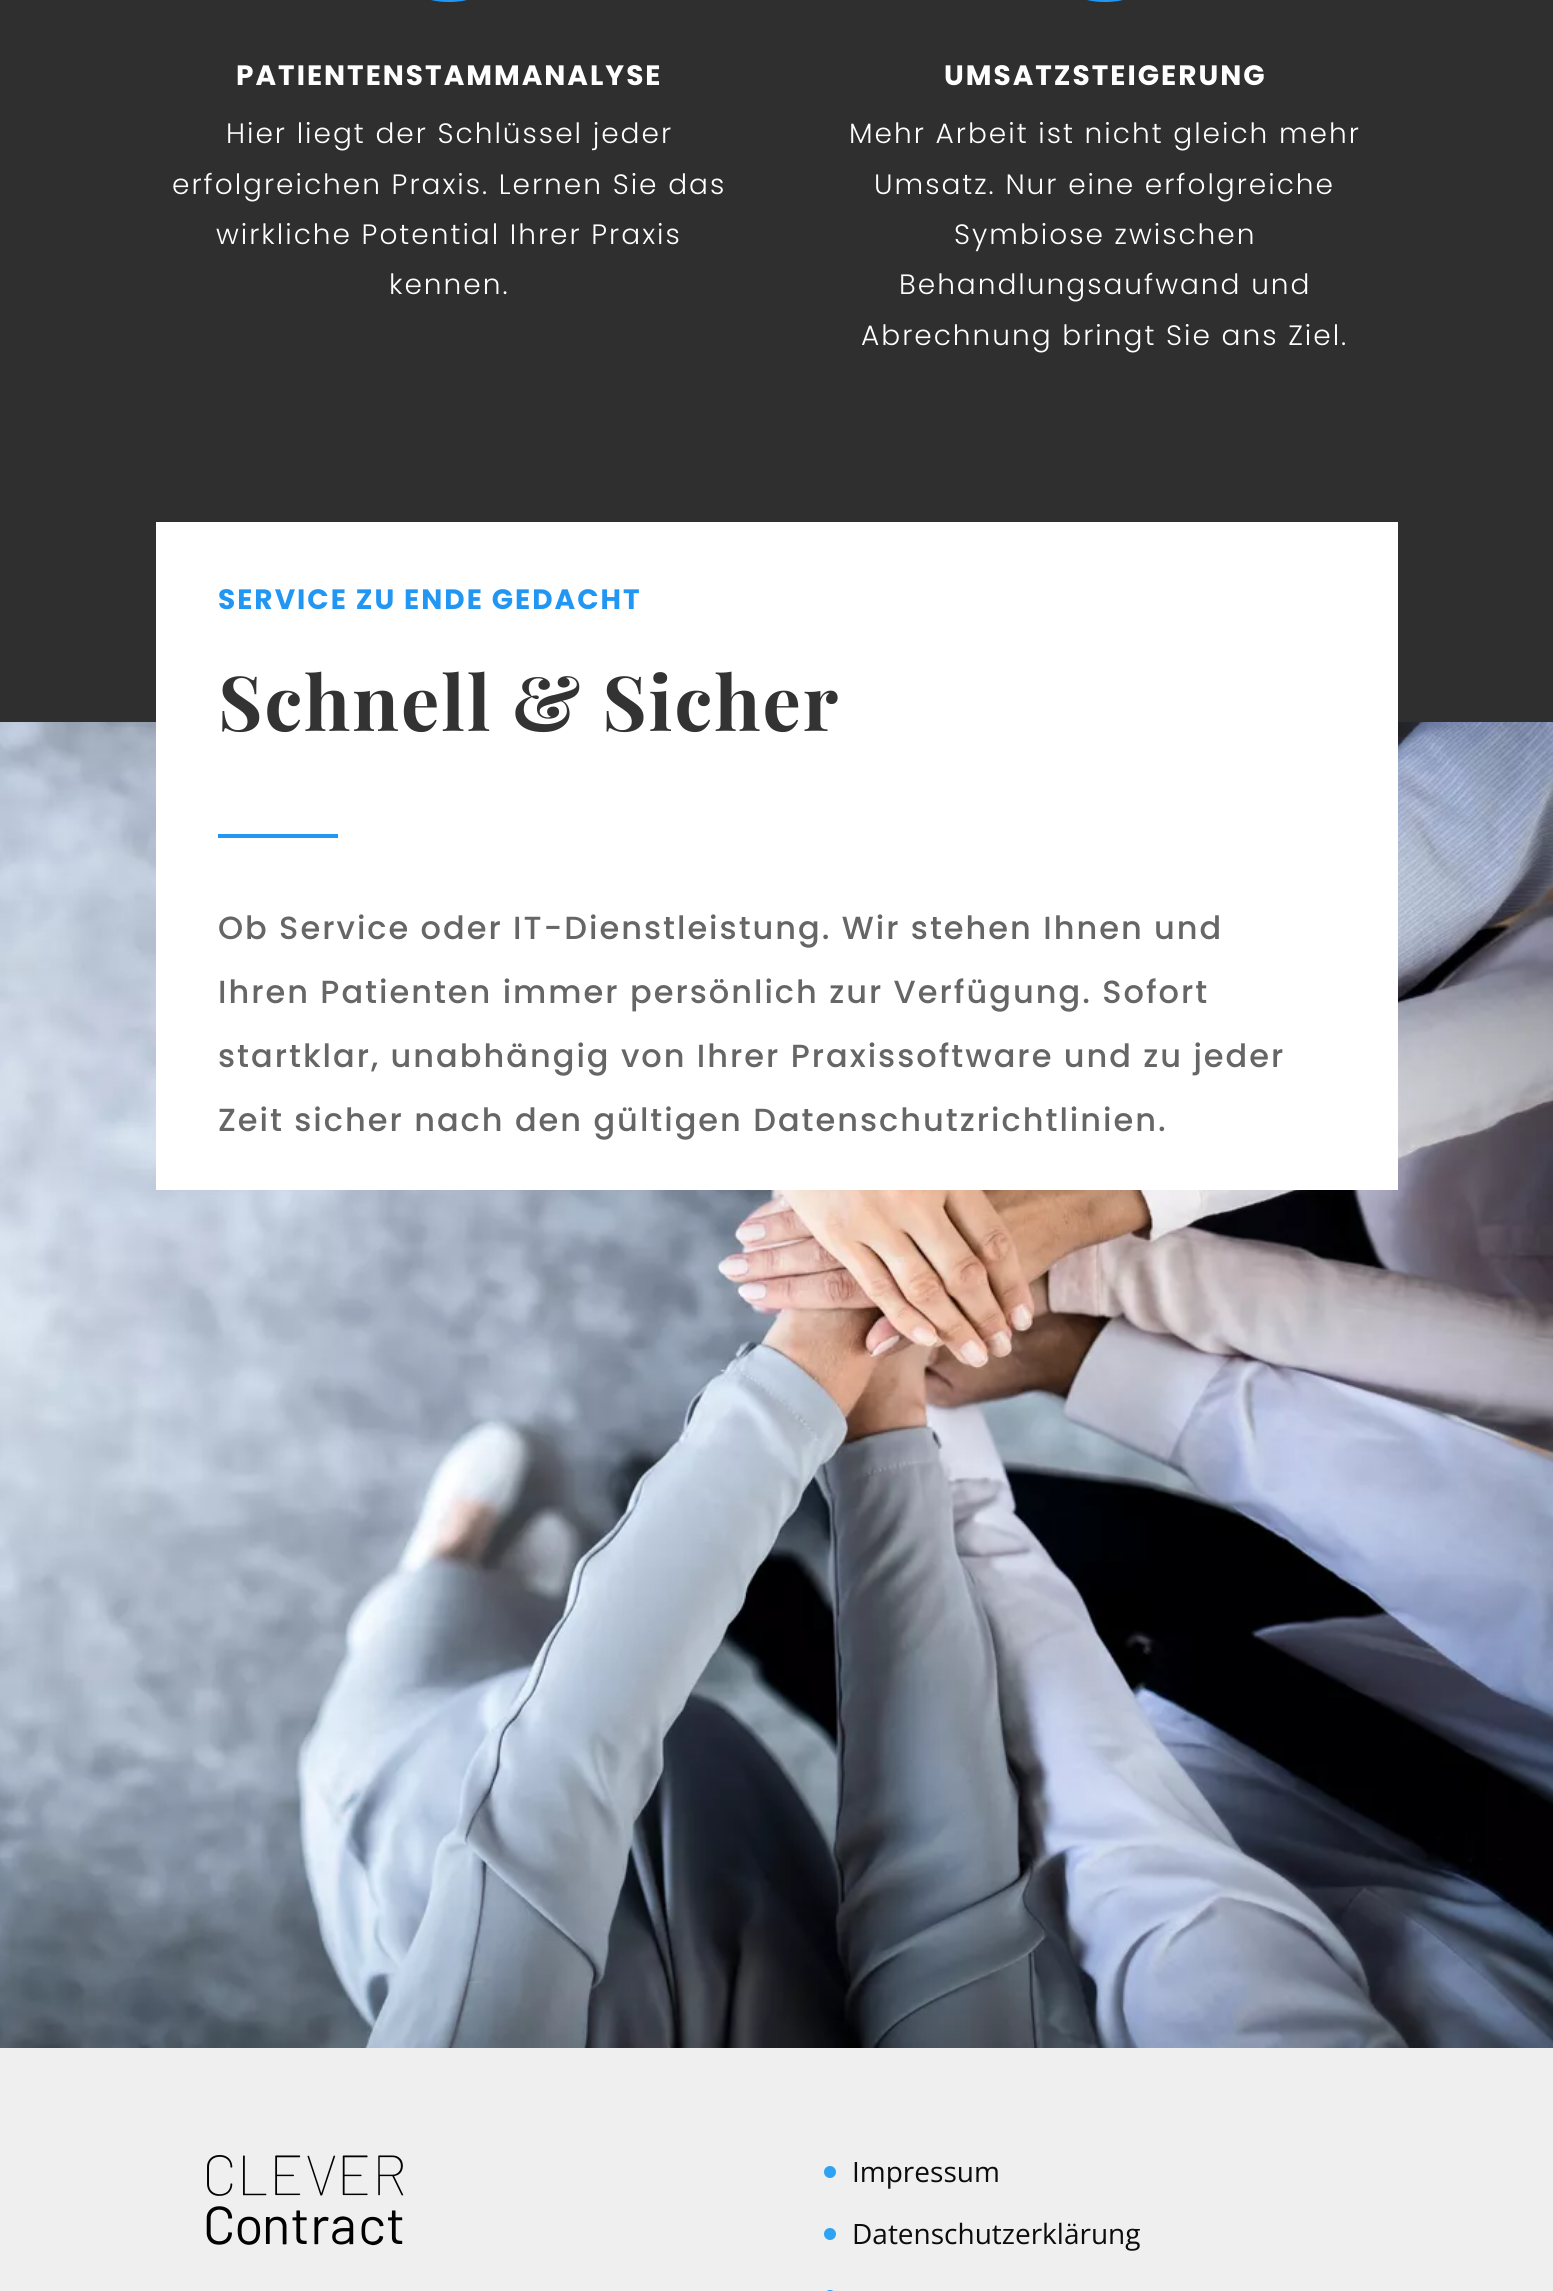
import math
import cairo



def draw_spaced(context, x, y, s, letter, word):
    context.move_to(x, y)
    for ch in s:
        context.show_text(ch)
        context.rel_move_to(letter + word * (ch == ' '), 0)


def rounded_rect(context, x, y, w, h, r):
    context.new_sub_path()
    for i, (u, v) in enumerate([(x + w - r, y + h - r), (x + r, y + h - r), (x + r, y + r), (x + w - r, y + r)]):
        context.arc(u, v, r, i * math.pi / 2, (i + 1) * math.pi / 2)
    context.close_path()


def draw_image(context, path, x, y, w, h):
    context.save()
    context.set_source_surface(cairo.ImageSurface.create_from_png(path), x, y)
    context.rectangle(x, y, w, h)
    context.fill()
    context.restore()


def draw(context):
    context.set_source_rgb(239 / 255, 239 / 255, 239 / 255)
    context.paint()
    context.set_source_rgb(47 / 255, 47 / 255, 47 / 255)
    context.rectangle(0, 0, 1553, 722)
    context.fill()
    context.set_source_rgb(33 / 255, 150 / 255, 243 / 255)
    rounded_rect(context, 374, -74, 150, 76, 74)
    context.fill()
    rounded_rect(context, 1030, -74, 150, 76, 74)
    context.fill()
    draw_image(context, "images/1.png", 0, 722, 1553, 1326)
    context.set_source_rgb(1, 1, 1)
    context.rectangle(156, 522, 1242, 668)
    context.fill()
    context.set_source_rgb(33 / 255, 150 / 255, 243 / 255)
    context.rectangle(218, 834, 120, 4)
    context.fill()
    draw_image(context, "images/2.png", 206, 2155, 198, 91)
    context.set_source_rgb(46 / 255, 163 / 255, 242 / 255)
    context.arc(830, 2172, 6, 0, 2 * math.pi)
    context.fill()
    context.arc(830, 2234, 6, 0, 2 * math.pi)
    context.fill()
    rounded_rect(context, 824, 2290, 12, 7, 6)
    context.fill()
    context.select_font_face("Poppins", cairo.FontSlant.NORMAL, cairo.FontWeight.BOLD)
    context.set_font_size(28)
    context.set_source_rgb(1, 1, 1)
    draw_spaced(context, 236, 85, "PATIENTENSTAMMANALYSE", 2, 0)
    context.select_font_face("Poppins Light")
    draw_spaced(context, 226, 143, "Hier liegt der Schlüssel jeder", 2, 0)
    draw_spaced(context, 172, 194, "erfolgreichen Praxis. Lernen Sie das", 2, 0)
    draw_spaced(context, 216, 244, "wirkliche Potential Ihrer Praxis", 2, 0)
    draw_spaced(context, 389, 294, "kennen.", 2, 0)
    context.select_font_face("Poppins", cairo.FontSlant.NORMAL, cairo.FontWeight.BOLD)
    draw_spaced(context, 944, 85, "UMSATZSTEIGERUNG", 2, 0)
    context.select_font_face("Poppins Light")
    draw_spaced(context, 849, 143, "Mehr Arbeit ist nicht gleich mehr", 2, 0)
    draw_spaced(context, 874, 194, "Umsatz. Nur eine erfolgreiche", 2, 0)
    draw_spaced(context, 954, 244, "Symbiose zwischen", 2, 0)
    draw_spaced(context, 899, 294, "Behandlungsaufwand und", 2, 0)
    draw_spaced(context, 861, 345, "Abrechnung bringt Sie ans Ziel.", 2, 0)
    context.select_font_face("Poppins", cairo.FontSlant.NORMAL, cairo.FontWeight.BOLD)
    context.set_source_rgb(33 / 255, 150 / 255, 243 / 255)
    draw_spaced(context, 218, 609, "SERVICE ZU ENDE GEDACHT", 2, 0)
    context.select_font_face("Playfair Display", cairo.FontSlant.NORMAL, cairo.FontWeight.BOLD)
    context.set_font_size(76)
    context.set_source_rgb(51 / 255, 51 / 255, 51 / 255)
    draw_spaced(context, 218, 731, "Schnell & Sicher", 2, 0)
    context.select_font_face("Poppins Medium")
    context.set_font_size(32)
    context.set_source_rgb(102 / 255, 102 / 255, 102 / 255)
    draw_spaced(context, 218, 939, "Ob Service oder IT-Dienstleistung. Wir stehen Ihnen und", 2, 0)
    draw_spaced(context, 218, 1003, "Ihren Patienten immer persönlich zur Verfügung. Sofort", 2, 0)
    draw_spaced(context, 218, 1067, "startklar, unabhängig von Ihrer Praxissoftware und zu jeder", 2, 0)
    draw_spaced(context, 218, 1131, "Zeit sicher nach den gültigen Datenschutzrichtlinien.", 2, 0)
    context.select_font_face("Open Sans")
    context.set_font_size(28)
    context.set_source_rgb(12 / 255, 12 / 255, 12 / 255)
    context.move_to(852, 2182)
    context.show_text("Impressum")
    context.move_to(852, 2244)
    context.show_text("Datenschutzerklärung")


surface = cairo.ImageSurface(cairo.Format.RGB24, 1553, 2291)
context = cairo.Context(surface)
options = cairo.FontOptions()
options.set_hint_metrics(cairo.HintMetrics.OFF)
options.set_hint_style(cairo.HintStyle.NONE)
context.set_font_options(options)
context.set_miter_limit(4)
draw(context)
surface.write_to_png("out.png")
